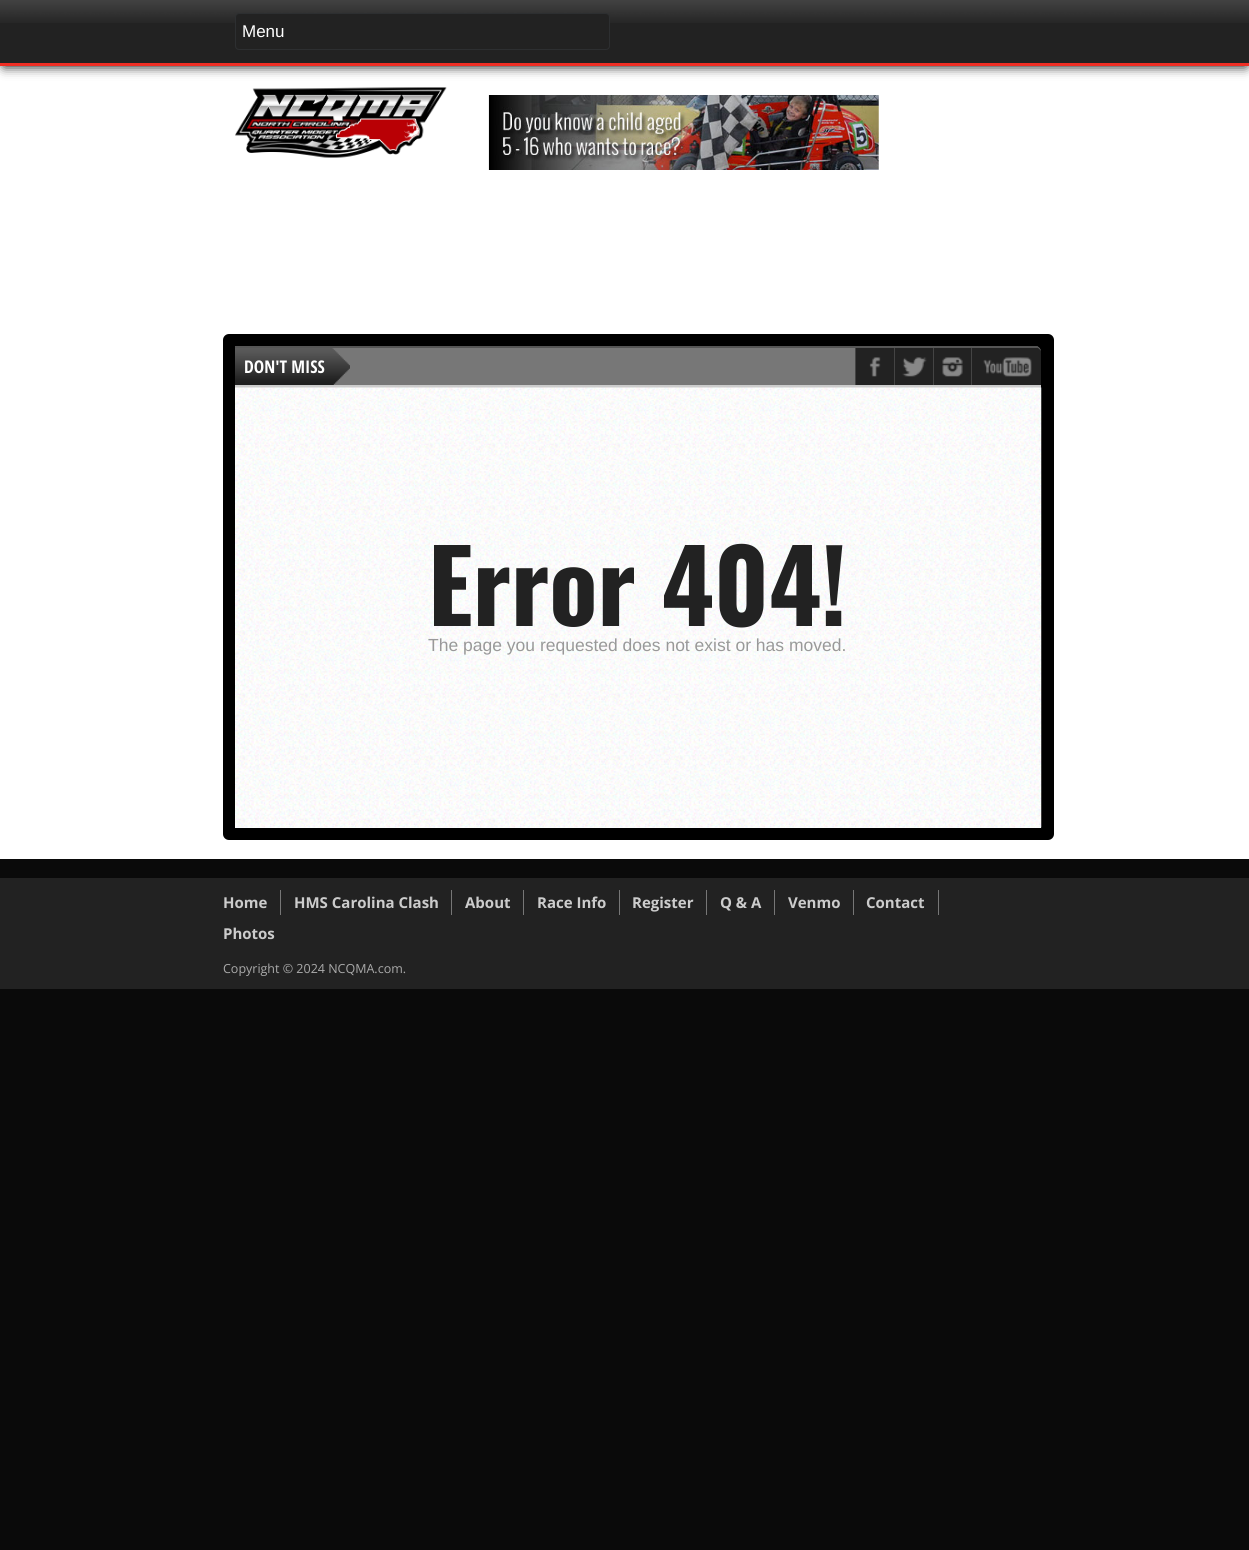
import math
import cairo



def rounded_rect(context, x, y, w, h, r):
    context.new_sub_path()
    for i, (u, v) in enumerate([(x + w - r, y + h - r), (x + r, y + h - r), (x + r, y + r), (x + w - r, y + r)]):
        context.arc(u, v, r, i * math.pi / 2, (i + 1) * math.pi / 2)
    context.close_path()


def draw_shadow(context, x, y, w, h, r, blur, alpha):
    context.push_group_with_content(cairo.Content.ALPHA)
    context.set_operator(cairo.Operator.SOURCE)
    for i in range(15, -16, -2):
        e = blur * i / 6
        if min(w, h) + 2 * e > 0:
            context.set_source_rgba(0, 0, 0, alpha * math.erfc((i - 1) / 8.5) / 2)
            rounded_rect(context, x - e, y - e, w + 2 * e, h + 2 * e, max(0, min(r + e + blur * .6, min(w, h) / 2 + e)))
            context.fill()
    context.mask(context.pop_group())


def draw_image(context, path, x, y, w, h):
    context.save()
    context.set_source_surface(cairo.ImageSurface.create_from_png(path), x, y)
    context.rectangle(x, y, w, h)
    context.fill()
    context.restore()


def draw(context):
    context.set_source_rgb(10 / 255, 10 / 255, 10 / 255)
    context.paint()
    context.set_source_rgb(1, 1, 1)
    context.rectangle(0, 66, 1249, 793)
    context.fill()
    context.set_source_rgb(0, 0, 0)
    draw_shadow(context, 4, 9, 1242, 57, 0, 6, 1)
    context.set_source_rgb(34 / 255, 34 / 255, 34 / 255)
    context.rectangle(0, 0, 1249, 63)
    context.fill()
    draw_image(context, "images/1.png", 0, 0, 1249, 23)
    context.set_source_rgb(240 / 255, 46 / 255, 36 / 255)
    context.rectangle(0, 63, 1249, 3)
    context.fill()
    context.set_source_rgb(34 / 255, 34 / 255, 34 / 255)
    rounded_rect(context, 235.5, 13.5, 374, 36, 3.5)
    context.fill_preserve()
    context.set_source_rgb(45 / 255, 47 / 255, 49 / 255)
    context.set_line_width(1)
    context.stroke()
    draw_image(context, "images/2.png", 235, 87, 212, 71)
    draw_image(context, "images/3.png", 488, 95, 391, 75)
    context.set_source_rgb(0, 0, 0)
    rounded_rect(context, 223, 334, 831, 506, 6)
    context.fill()
    context.set_source_rgb(119 / 255, 119 / 255, 119 / 255)
    context.new_path()
    context.move_to(235, 346)
    context.line_to(1035, 346)
    context.curve_to(1038.5, 346, 1041, 348.5, 1041, 352)
    context.line_to(1041, 388)
    context.line_to(235, 388)
    context.close_path()
    context.fill()
    context.set_source_rgb(85 / 255, 85 / 255, 85 / 255)
    context.new_path()
    context.move_to(235, 348)
    context.line_to(1035, 348)
    context.curve_to(1038, 348, 1041, 350, 1041, 352)
    context.curve_to(1041, 350, 1039, 347, 1037, 346)
    context.line_to(235, 346)
    context.close_path()
    context.fill()
    context.set_source_rgb(204 / 255, 204 / 255, 204 / 255)
    context.rectangle(235, 385, 806, 3)
    context.fill()
    draw_image(context, "images/4.png", 235, 348, 115, 37)
    context.set_source_rgb(34 / 255, 34 / 255, 34 / 255)
    context.new_path()
    context.move_to(855, 348)
    context.line_to(855, 385)
    context.line_to(1041, 385)
    context.line_to(1041, 351)
    context.curve_to(1041, 350, 1039, 349, 1038, 348)
    context.close_path()
    context.fill()
    context.set_source_rgb(68 / 255, 68 / 255, 68 / 255)
    context.rectangle(855, 348, 1, 37)
    context.fill()
    draw_image(context, "images/5.png", 869, 357, 12, 20)
    context.rectangle(894, 348, 1, 37)
    context.fill()
    draw_image(context, "images/6.png", 902, 357, 25, 20)
    context.rectangle(933, 348, 1, 37)
    context.fill()
    draw_image(context, "images/7.png", 942, 357, 21, 20)
    context.rectangle(971, 348, 1, 37)
    context.fill()
    draw_image(context, "images/8.png", 983, 357, 49, 20)
    context.set_source_rgb(1, 1, 1)
    context.rectangle(235, 827, 806, 1)
    context.fill()
    draw_image(context, "images/9.png", 235, 387, 807, 441)
    context.set_source_rgb(34 / 255, 34 / 255, 34 / 255)
    context.rectangle(0, 878, 1249, 111)
    context.fill()
    context.set_source_rgb(119 / 255, 119 / 255, 119 / 255)
    context.rectangle(280, 890, 1, 25)
    context.fill()
    context.rectangle(451, 890, 1, 25)
    context.fill()
    context.rectangle(523, 890, 1, 25)
    context.fill()
    context.rectangle(619, 890, 1, 25)
    context.fill()
    context.rectangle(706, 890, 1, 25)
    context.fill()
    context.rectangle(774, 890, 1, 25)
    context.fill()
    context.rectangle(853, 890, 1, 25)
    context.fill()
    context.rectangle(938, 890, 1, 25)
    context.fill()
    context.select_font_face("Liberation Sans")
    context.set_font_size(17)
    context.set_source_rgb(1, 1, 1)
    context.move_to(242, 37)
    context.show_text("Menu")
    context.select_font_face("Open Sans Condensed", cairo.FontSlant.NORMAL, cairo.FontWeight.BOLD)
    context.set_font_size(17.5)
    context.move_to(244, 373)
    context.show_text("DON'T MISS")
    context.select_font_face("Oswald", cairo.FontSlant.NORMAL, cairo.FontWeight.BOLD)
    context.set_font_size(100)
    context.set_source_rgb(34 / 255, 34 / 255, 34 / 255)
    context.move_to(428, 626)
    context.show_text("Error 404!")
    context.select_font_face("Liberation Sans")
    context.set_font_size(17.5)
    context.set_source_rgb(153 / 255, 153 / 255, 153 / 255)
    context.move_to(428, 651)
    context.show_text("The page you requested does not exist or has moved.")
    context.select_font_face("Open Sans", cairo.FontSlant.NORMAL, cairo.FontWeight.BOLD)
    context.set_font_size(15)
    context.set_source_rgb(204 / 255, 204 / 255, 204 / 255)
    context.move_to(223, 908)
    context.show_text("Home")
    context.move_to(294, 908)
    context.show_text("HMS Carolina Clash")
    context.move_to(465, 908)
    context.show_text("About")
    context.move_to(537, 908)
    context.show_text("Race Info")
    context.move_to(632, 908)
    context.show_text("Register")
    context.move_to(720, 908)
    context.show_text("Q & A")
    context.move_to(788, 908)
    context.show_text("Venmo")
    context.move_to(866, 908)
    context.show_text("Contact")
    context.move_to(223, 939)
    context.show_text("Photos")
    context.select_font_face("Open Sans")
    context.set_font_size(12.5)
    context.set_source_rgb(170 / 255, 170 / 255, 170 / 255)
    context.move_to(223, 973)
    context.show_text("Copyright © 2024 NCQMA.com.")


surface = cairo.ImageSurface(cairo.Format.RGB24, 1249, 1550)
context = cairo.Context(surface)
options = cairo.FontOptions()
options.set_hint_metrics(cairo.HintMetrics.OFF)
options.set_hint_style(cairo.HintStyle.NONE)
context.set_font_options(options)
context.set_miter_limit(4)
draw(context)
surface.write_to_png("out.png")
